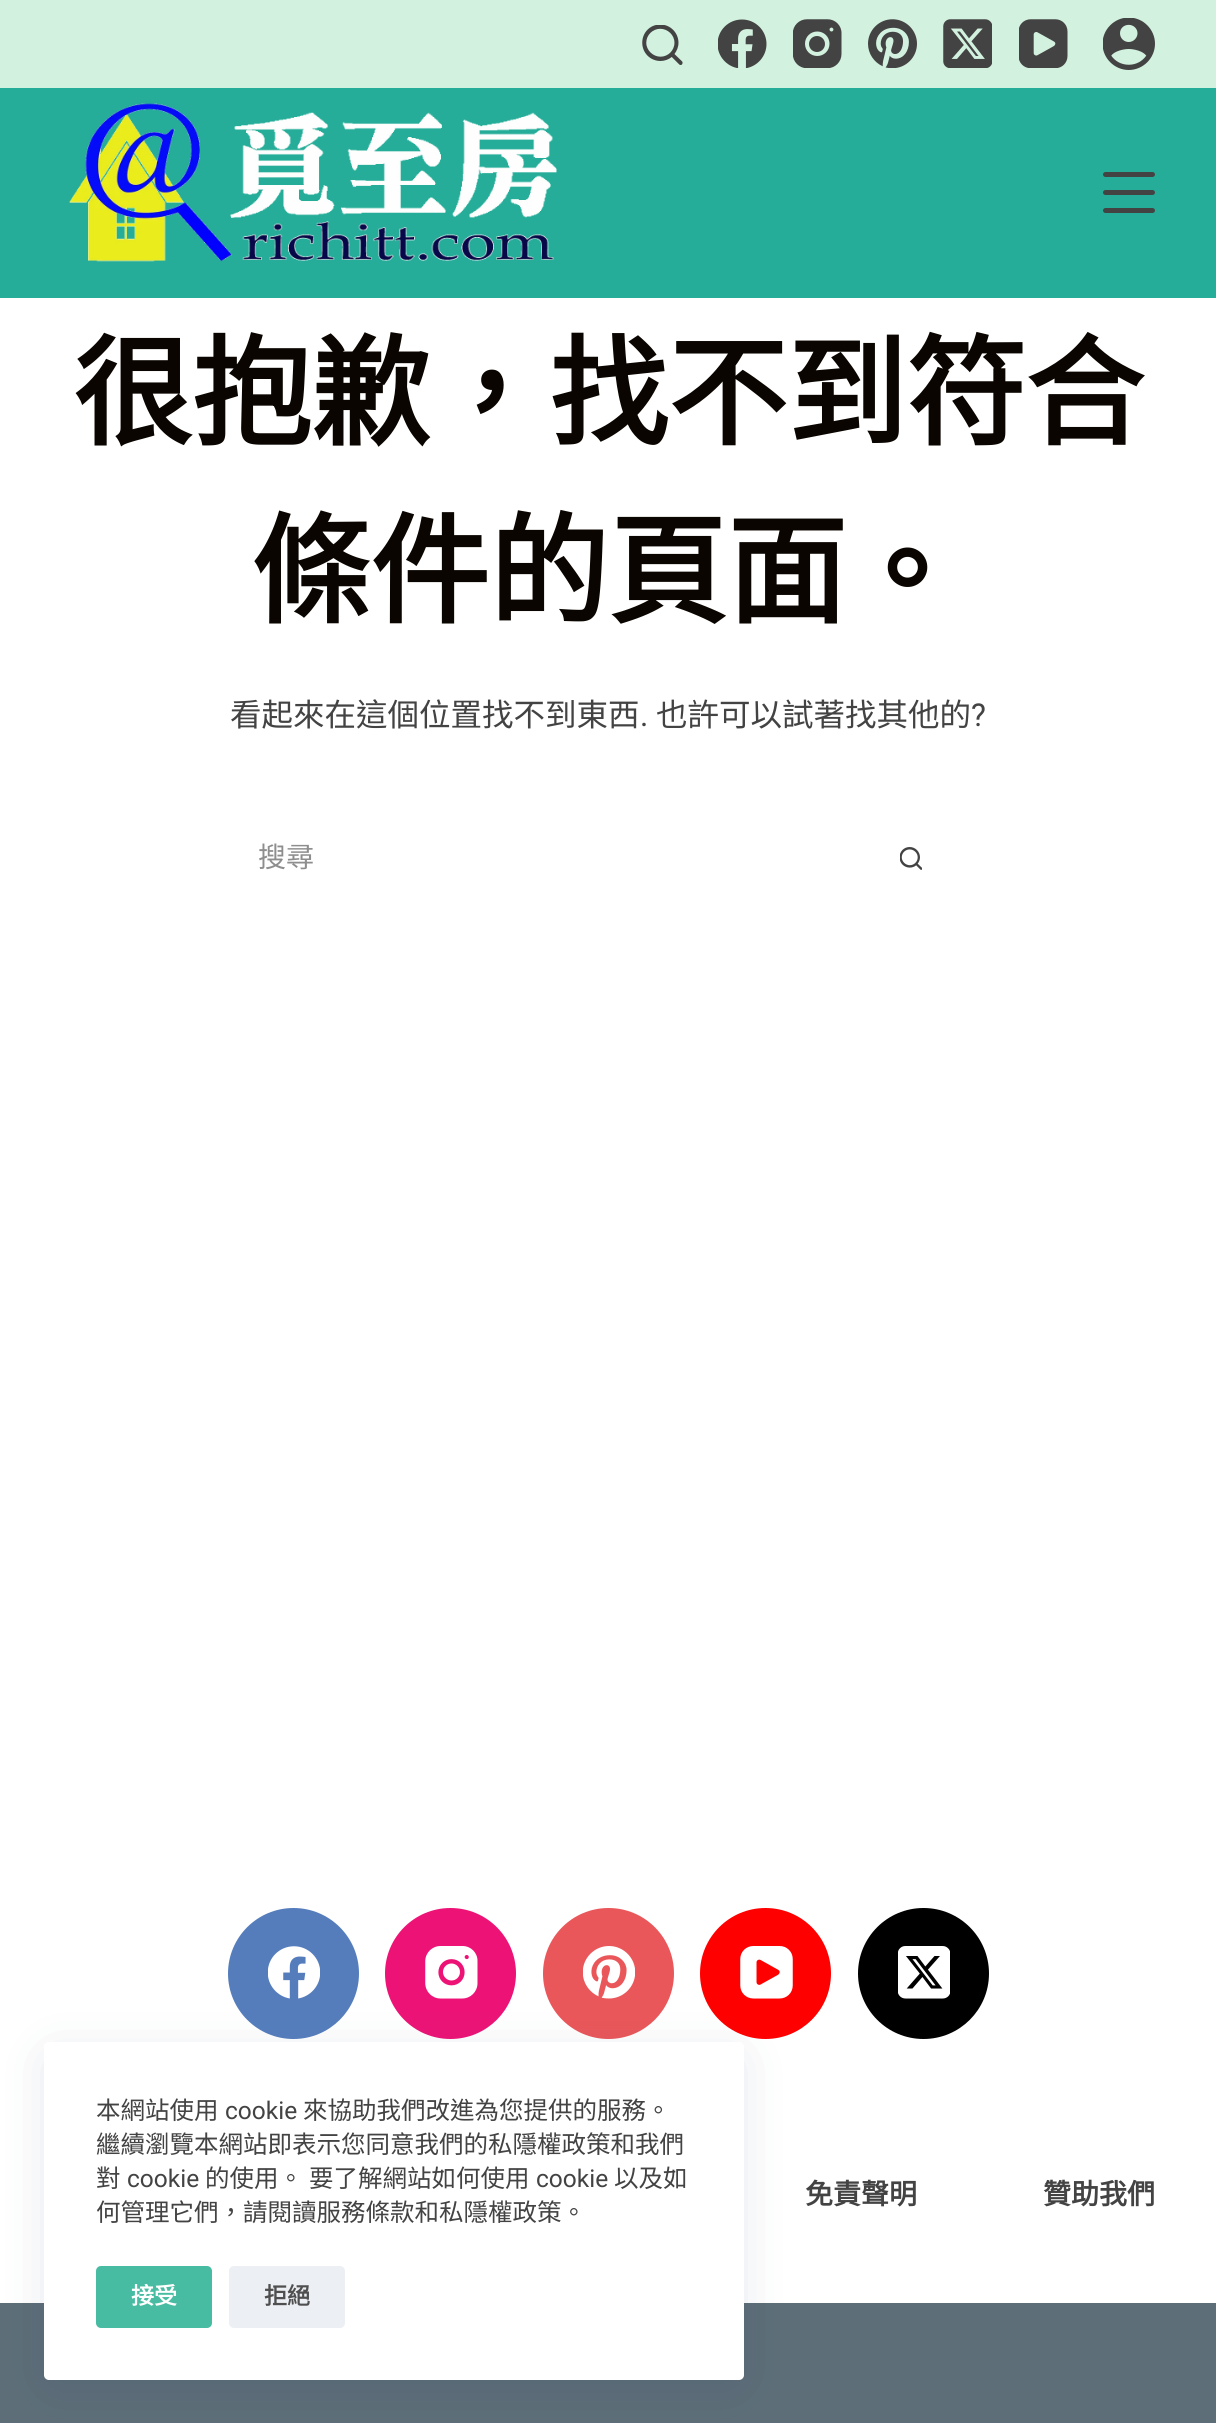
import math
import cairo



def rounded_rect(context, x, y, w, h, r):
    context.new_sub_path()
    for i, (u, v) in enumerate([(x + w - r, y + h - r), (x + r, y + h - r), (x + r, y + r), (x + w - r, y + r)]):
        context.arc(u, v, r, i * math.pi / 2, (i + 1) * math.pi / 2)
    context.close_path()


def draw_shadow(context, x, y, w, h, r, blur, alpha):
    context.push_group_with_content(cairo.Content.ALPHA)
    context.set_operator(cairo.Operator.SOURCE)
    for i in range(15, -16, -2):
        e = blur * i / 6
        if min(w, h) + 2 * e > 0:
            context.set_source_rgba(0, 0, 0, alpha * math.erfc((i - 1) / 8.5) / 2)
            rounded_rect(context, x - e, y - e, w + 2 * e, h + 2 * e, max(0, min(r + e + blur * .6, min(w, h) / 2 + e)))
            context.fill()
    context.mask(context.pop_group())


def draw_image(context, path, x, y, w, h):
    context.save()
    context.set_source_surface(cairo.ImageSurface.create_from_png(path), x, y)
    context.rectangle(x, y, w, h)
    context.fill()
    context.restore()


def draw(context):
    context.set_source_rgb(1, 1, 1)
    context.paint()
    context.set_source_rgb(211 / 255, 241 / 255, 223 / 255)
    context.rectangle(0, 0, 1216, 88)
    context.fill()
    draw_image(context, "images/1.png", 642, 25, 41, 40)
    draw_image(context, "images/2.png", 718, 19, 49, 49)
    draw_image(context, "images/3.png", 793, 19, 49, 49)
    draw_image(context, "images/4.png", 868, 19, 49, 49)
    draw_image(context, "images/5.png", 943, 19, 49, 49)
    draw_image(context, "images/6.png", 1019, 19, 49, 49)
    draw_image(context, "images/7.png", 1103, 18, 52, 52)
    context.set_source_rgb(37 / 255, 173 / 255, 153 / 255)
    context.rectangle(0, 88, 1216, 210)
    context.fill()
    draw_image(context, "images/8.png", 69, 103, 488, 159)
    context.set_source_rgb(67 / 255, 67 / 255, 67 / 255)
    rounded_rect(context, 1103, 172, 52, 5, 2.5)
    context.fill()
    rounded_rect(context, 1103, 190, 52, 5, 2.5)
    context.fill()
    rounded_rect(context, 1103, 208, 52, 5, 2.5)
    context.fill()
    draw_image(context, "images/9.png", 900, 847, 22, 23)
    context.set_source_rgb(85 / 255, 125 / 255, 188 / 255)
    context.arc(293.5, 1973.5, 65.5, 0, 2 * math.pi)
    context.fill()
    draw_image(context, "images/10.png", 268, 1946, 52, 53)
    context.set_source_rgb(237 / 255, 19 / 255, 118 / 255)
    context.arc(450.5, 1973.5, 65.5, 0, 2 * math.pi)
    context.fill()
    draw_image(context, "images/11.png", 425, 1946, 53, 53)
    context.set_source_rgb(234 / 255, 87 / 255, 90 / 255)
    context.arc(608.5, 1973.5, 65.5, 0, 2 * math.pi)
    context.fill()
    draw_image(context, "images/12.png", 583, 1946, 52, 53)
    context.set_source_rgb(1, 0, 0)
    context.arc(765.5, 1973.5, 65.5, 0, 2 * math.pi)
    context.fill()
    draw_image(context, "images/13.png", 740, 1946, 53, 53)
    context.set_source_rgb(0, 0, 0)
    context.arc(923.5, 1973.5, 65.5, 0, 2 * math.pi)
    context.fill()
    draw_image(context, "images/14.png", 898, 1946, 52, 53)
    context.set_source_rgb(93 / 255, 110 / 255, 120 / 255)
    context.rectangle(0, 2303, 1216, 120)
    context.fill()
    context.set_source_rgb(34 / 255, 56 / 255, 101 / 255)
    draw_shadow(context, 53, 2060, 682, 320, 0, 26, 0.15)
    context.set_source_rgb(1, 1, 1)
    rounded_rect(context, 44, 2042, 700, 338, 5)
    context.fill()
    context.set_source_rgb(72 / 255, 188 / 255, 162 / 255)
    rounded_rect(context, 96, 2266, 116, 62, 5)
    context.fill()
    context.set_source_rgb(236 / 255, 239 / 255, 243 / 255)
    rounded_rect(context, 229, 2266, 116, 62, 5)
    context.fill()
    context.select_font_face("Noto Sans CJK TC", cairo.FontSlant.NORMAL, cairo.FontWeight.BOLD)
    context.set_font_size(119)
    context.set_source_rgb(10 / 255, 5 / 255, 0)
    context.move_to(73, 436)
    context.show_text("很抱歉，找不到符合")
    context.move_to(251, 614)
    context.show_text("條件的頁面。")
    context.select_font_face("Noto Sans CJK TC")
    context.set_font_size(31.5)
    context.set_source_rgb(67 / 255, 67 / 255, 67 / 255)
    context.move_to(230, 726)
    context.show_text("看起來在這個位置找不到東西")
    context.select_font_face("Roboto")
    context.move_to(640, 726)
    context.show_text(".")
    context.select_font_face("Noto Sans CJK TC")
    context.move_to(656, 726)
    context.show_text("也許可以試著找其他的")
    context.select_font_face("Roboto")
    context.move_to(971, 726)
    context.show_text("?")
    context.select_font_face("Noto Sans CJK TC")
    context.set_font_size(28)
    context.set_source_rgb(142 / 255, 142 / 255, 142 / 255)
    context.move_to(258, 867)
    context.show_text("搜尋")
    context.select_font_face("Noto Sans CJK TC", cairo.FontSlant.NORMAL, cairo.FontWeight.BOLD)
    context.set_source_rgb(67 / 255, 67 / 255, 67 / 255)
    context.move_to(805, 2204)
    context.show_text("免責聲明")
    context.move_to(1043, 2204)
    context.show_text("贊助我們")
    context.select_font_face("Noto Sans CJK TC")
    context.set_font_size(24.5)
    context.move_to(96, 2119)
    context.show_text("本網站使用")
    context.select_font_face("Roboto")
    context.move_to(225, 2119)
    context.show_text("cookie")
    context.select_font_face("Noto Sans CJK TC")
    context.move_to(303, 2119)
    context.show_text("來協助我們改進為您提供的服務。")
    context.move_to(96, 2153)
    context.show_text("繼續瀏覽本網站即表示您同意我們的私隱權政策和我們")
    context.move_to(96, 2187)
    context.show_text("對")
    context.select_font_face("Roboto")
    context.move_to(127, 2187)
    context.show_text("cookie")
    context.select_font_face("Noto Sans CJK TC")
    context.move_to(205, 2187)
    context.show_text("的使用。")
    context.move_to(309, 2187)
    context.show_text("要了解網站如何使用")
    context.select_font_face("Roboto")
    context.move_to(536, 2187)
    context.show_text("cookie")
    context.select_font_face("Noto Sans CJK TC")
    context.move_to(614, 2187)
    context.show_text("以及如")
    context.move_to(96, 2221)
    context.show_text("何管理它們，請閱讀服務條款和私隱權政策。")
    context.select_font_face("Noto Sans CJK TC", cairo.FontSlant.NORMAL, cairo.FontWeight.BOLD)
    context.set_font_size(23)
    context.set_source_rgb(1, 1, 1)
    context.move_to(131, 2304)
    context.show_text("接受")
    context.set_source_rgb(79 / 255, 79 / 255, 79 / 255)
    context.move_to(264, 2304)
    context.show_text("拒絕")


surface = cairo.ImageSurface(cairo.Format.RGB24, 1216, 2423)
context = cairo.Context(surface)
options = cairo.FontOptions()
options.set_hint_metrics(cairo.HintMetrics.OFF)
options.set_hint_style(cairo.HintStyle.NONE)
context.set_font_options(options)
context.set_miter_limit(4)
draw(context)
surface.write_to_png("out.png")
